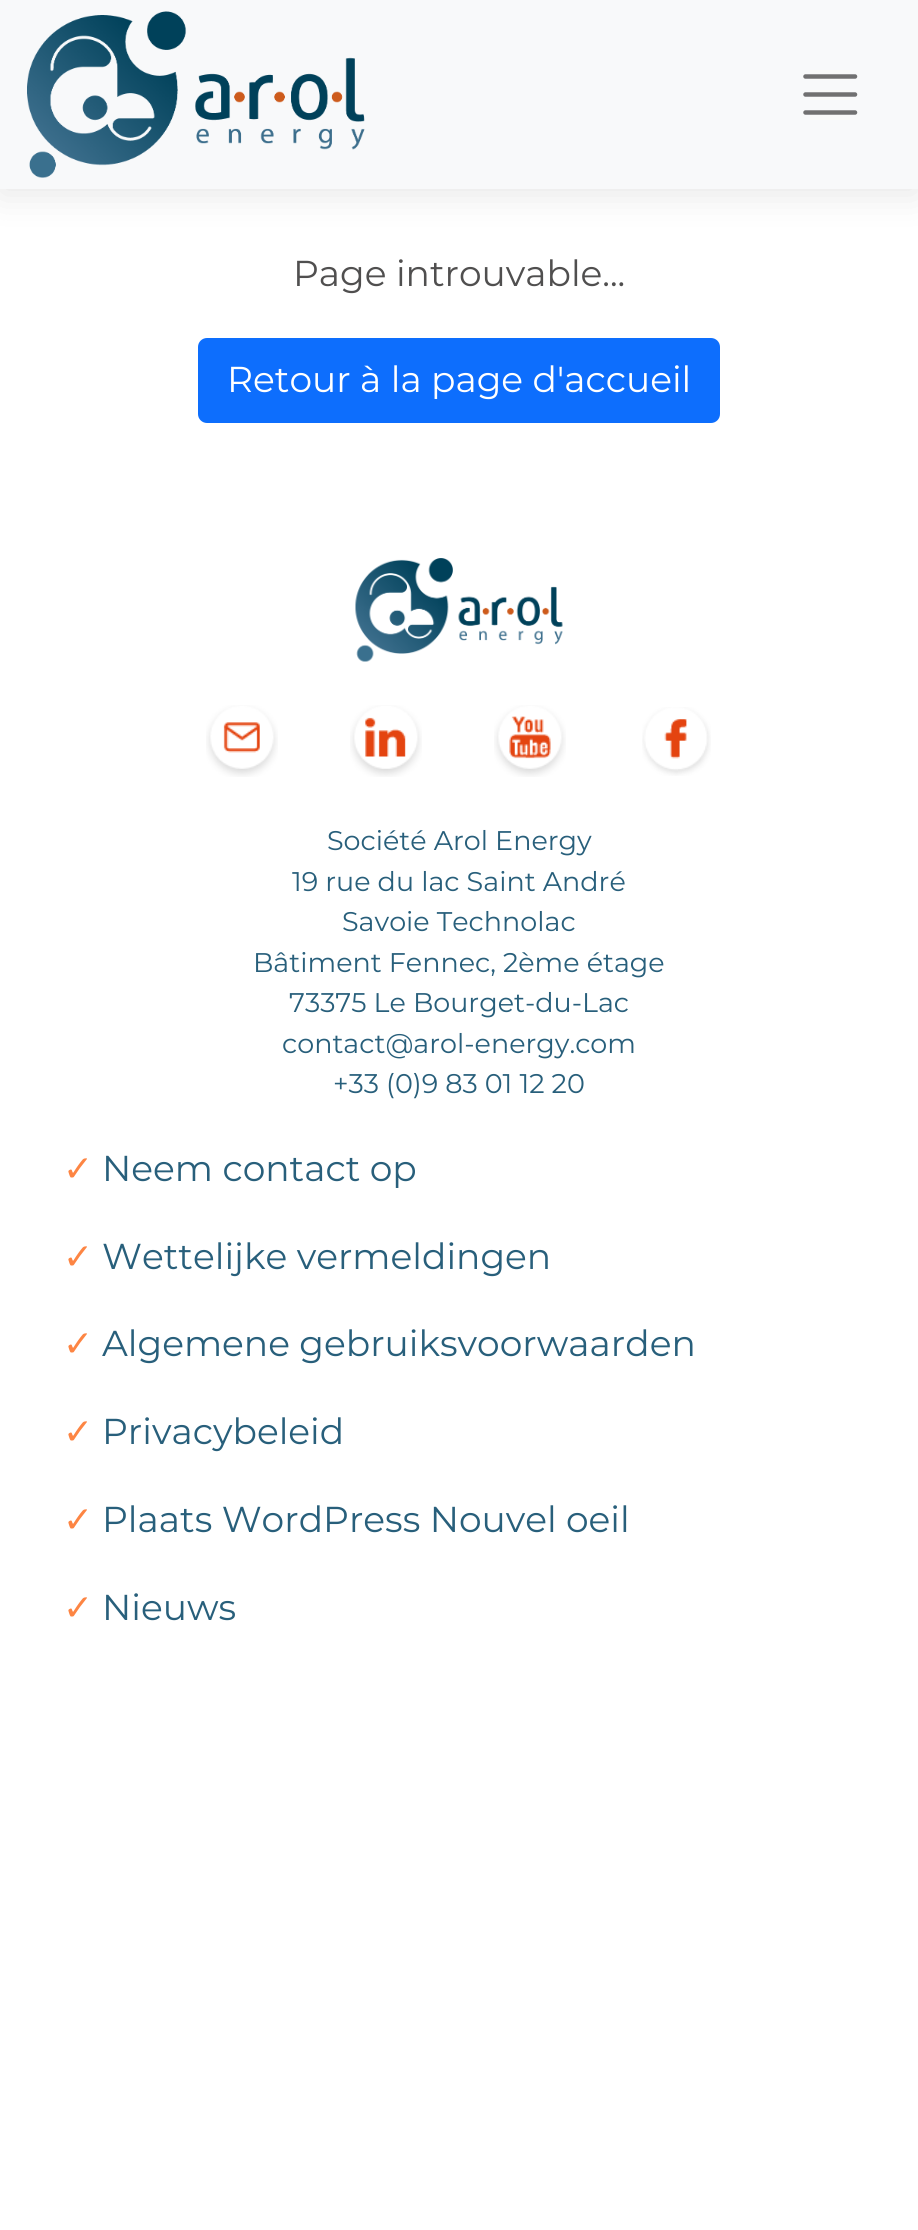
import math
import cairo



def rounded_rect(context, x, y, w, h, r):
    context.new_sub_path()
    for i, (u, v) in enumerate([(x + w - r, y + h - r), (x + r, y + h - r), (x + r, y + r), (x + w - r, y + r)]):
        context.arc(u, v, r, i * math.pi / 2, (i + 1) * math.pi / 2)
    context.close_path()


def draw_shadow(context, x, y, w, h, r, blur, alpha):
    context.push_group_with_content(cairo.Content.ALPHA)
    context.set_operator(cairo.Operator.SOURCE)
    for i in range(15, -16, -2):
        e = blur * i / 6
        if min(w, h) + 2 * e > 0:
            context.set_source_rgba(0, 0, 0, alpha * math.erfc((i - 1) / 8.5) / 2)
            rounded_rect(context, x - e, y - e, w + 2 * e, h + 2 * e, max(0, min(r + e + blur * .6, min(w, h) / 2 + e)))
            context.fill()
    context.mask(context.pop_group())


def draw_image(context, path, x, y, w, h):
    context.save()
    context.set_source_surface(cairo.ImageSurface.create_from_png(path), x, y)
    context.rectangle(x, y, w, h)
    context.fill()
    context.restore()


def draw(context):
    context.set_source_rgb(1, 1, 1)
    context.paint()
    context.set_source_rgb(0, 0, 0)
    draw_shadow(context, 0, 5, 918, 189, 0, 18, 0.1)
    context.set_source_rgb(248 / 255, 249 / 255, 250 / 255)
    context.rectangle(0, 0, 918, 189)
    context.fill()
    draw_image(context, "images/1.png", 27, 11, 338, 167)
    context.new_path()
    context.move_to(805.5, 76.5)
    context.line_to(855, 76.5)
    context.move_to(805.5, 94.5)
    context.line_to(855, 94.5)
    context.move_to(805.5, 112.5)
    context.line_to(855, 112.5)
    context.set_source_rgb(112 / 255, 112 / 255, 113 / 255)
    context.set_line_width(4.5)
    context.set_line_cap(cairo.LineCap.ROUND)
    context.stroke()
    context.set_source_rgb(13 / 255, 110 / 255, 253 / 255)
    rounded_rect(context, 199, 339, 520, 83, 8)
    context.fill_preserve()
    context.set_line_width(2)
    context.set_line_cap(cairo.LineCap.BUTT)
    context.stroke()
    draw_image(context, "images/2.png", 355, 558, 208, 104)
    draw_image(context, "images/3.png", 206, 705, 72, 72)
    draw_image(context, "images/4.png", 350, 705, 72, 72)
    draw_image(context, "images/5.png", 494, 705, 72, 72)
    draw_image(context, "images/6.png", 642, 707, 69, 69)
    context.select_font_face("Montserrat")
    context.set_font_size(36)
    context.set_source_rgb(80 / 255, 79 / 255, 79 / 255)
    context.move_to(293, 286)
    context.show_text("Page introuvable...")
    context.set_source_rgb(1, 1, 1)
    context.move_to(227, 392)
    context.show_text("Retour à la page d'accueil")
    context.set_font_size(27)
    context.set_source_rgb(40 / 255, 95 / 255, 123 / 255)
    context.move_to(327, 850)
    context.show_text("Société Arol Energy")
    context.move_to(292, 891)
    context.show_text("19 rue du lac Saint André")
    context.move_to(342, 931)
    context.show_text("Savoie Technolac")
    context.move_to(253, 972)
    context.show_text("Bâtiment Fennec, 2ème étage")
    context.move_to(289, 1012)
    context.show_text("73375 Le Bourget-du-Lac")
    context.move_to(282, 1053)
    context.show_text("contact@arol-energy.com")
    context.move_to(333, 1093)
    context.show_text("+33 (0)9 83 01 12 20")
    context.select_font_face("DejaVu Sans")
    context.set_font_size(36)
    context.set_source_rgb(253 / 255, 133 / 255, 67 / 255)
    context.move_to(63, 1181)
    context.show_text("✓")
    context.select_font_face("Montserrat")
    context.set_source_rgb(40 / 255, 95 / 255, 123 / 255)
    context.move_to(102, 1181)
    context.show_text("Neem contact op")
    context.select_font_face("DejaVu Sans")
    context.set_source_rgb(253 / 255, 133 / 255, 67 / 255)
    context.move_to(63, 1269)
    context.show_text("✓")
    context.select_font_face("Montserrat")
    context.set_source_rgb(40 / 255, 95 / 255, 123 / 255)
    context.move_to(102, 1269)
    context.show_text("Wettelijke vermeldingen")
    context.select_font_face("DejaVu Sans")
    context.set_source_rgb(253 / 255, 133 / 255, 67 / 255)
    context.move_to(63, 1356)
    context.show_text("✓")
    context.select_font_face("Montserrat")
    context.set_source_rgb(40 / 255, 95 / 255, 123 / 255)
    context.move_to(102, 1356)
    context.show_text("Algemene gebruiksvoorwaarden")
    context.select_font_face("DejaVu Sans")
    context.set_source_rgb(253 / 255, 133 / 255, 67 / 255)
    context.move_to(63, 1444)
    context.show_text("✓")
    context.select_font_face("Montserrat")
    context.set_source_rgb(40 / 255, 95 / 255, 123 / 255)
    context.move_to(102, 1444)
    context.show_text("Privacybeleid")
    context.select_font_face("DejaVu Sans")
    context.set_source_rgb(253 / 255, 133 / 255, 67 / 255)
    context.move_to(63, 1532)
    context.show_text("✓")
    context.select_font_face("Montserrat")
    context.set_source_rgb(40 / 255, 95 / 255, 123 / 255)
    context.move_to(102, 1532)
    context.show_text("Plaats WordPress Nouvel oeil")
    context.select_font_face("DejaVu Sans")
    context.set_source_rgb(253 / 255, 133 / 255, 67 / 255)
    context.move_to(63, 1620)
    context.show_text("✓")
    context.select_font_face("Montserrat")
    context.set_source_rgb(40 / 255, 95 / 255, 123 / 255)
    context.move_to(102, 1620)
    context.show_text("Nieuws")


surface = cairo.ImageSurface(cairo.Format.RGB24, 918, 2230)
context = cairo.Context(surface)
options = cairo.FontOptions()
options.set_hint_metrics(cairo.HintMetrics.OFF)
options.set_hint_style(cairo.HintStyle.NONE)
context.set_font_options(options)
context.set_miter_limit(4)
draw(context)
surface.write_to_png("out.png")
